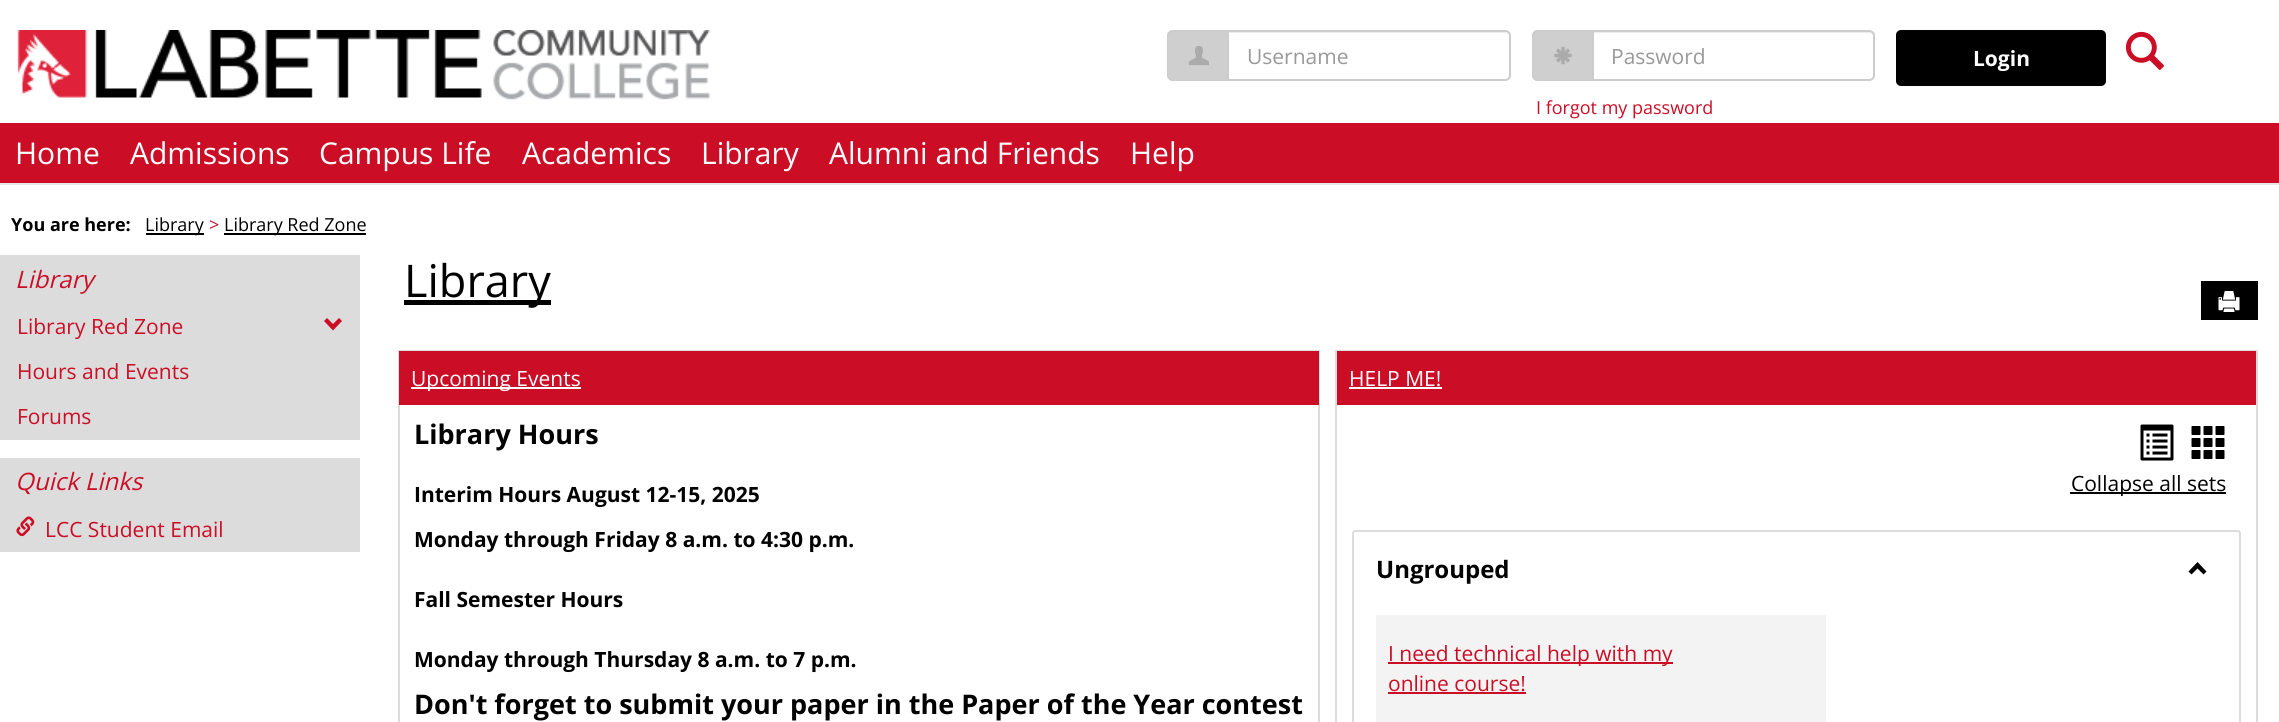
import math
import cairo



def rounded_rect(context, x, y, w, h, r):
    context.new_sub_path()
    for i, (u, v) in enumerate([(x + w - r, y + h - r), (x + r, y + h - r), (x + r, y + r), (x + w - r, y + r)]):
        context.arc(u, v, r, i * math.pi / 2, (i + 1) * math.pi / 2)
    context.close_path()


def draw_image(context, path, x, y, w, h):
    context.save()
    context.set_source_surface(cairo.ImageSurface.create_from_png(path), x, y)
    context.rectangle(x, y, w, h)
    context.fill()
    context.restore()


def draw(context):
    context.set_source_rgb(1, 1, 1)
    context.paint()
    draw_image(context, "images/1.png", 17, 30, 693, 70)
    context.set_source_rgb(207 / 255, 207 / 255, 207 / 255)
    context.new_path()
    context.move_to(1173, 30)
    context.line_to(1227, 30)
    context.line_to(1227, 81)
    context.line_to(1173, 81)
    context.curve_to(1169.5, 81, 1167, 78.5, 1167, 75)
    context.line_to(1167, 36)
    context.curve_to(1167, 32.5, 1169.5, 30, 1173, 30)
    context.close_path()
    context.fill()
    context.set_source_rgb(204 / 255, 204 / 255, 204 / 255)
    context.set_fill_rule(cairo.FillRule.EVEN_ODD)
    context.new_path()
    context.move_to(1173, 30)
    context.line_to(1227, 30)
    context.line_to(1227, 81)
    context.line_to(1173, 81)
    context.curve_to(1170, 81, 1167, 78, 1167, 75)
    context.line_to(1167, 36)
    context.curve_to(1167, 33, 1170, 30, 1173, 30)
    context.close_path()
    context.move_to(1173, 32)
    context.line_to(1227, 32)
    context.line_to(1227, 80)
    context.line_to(1173, 80)
    context.curve_to(1171, 80, 1168, 77, 1168, 75)
    context.line_to(1168, 36)
    context.curve_to(1168, 34, 1171, 32, 1173, 32)
    context.close_path()
    context.fill()
    draw_image(context, "images/2.png", 1188, 46, 21, 20)
    context.set_source_rgb(236 / 255, 236 / 255, 236 / 255)
    context.set_fill_rule(cairo.FillRule.WINDING)
    context.new_path()
    context.move_to(1229, 32)
    context.line_to(1229, 33)
    context.line_to(1504, 33)
    context.curve_to(1507, 33, 1509, 35, 1509, 38)
    context.curve_to(1509, 35, 1507, 32, 1504, 32)
    context.close_path()
    context.fill()
    context.new_path()
    context.move_to(1228, 31)
    context.line_to(1505, 31)
    context.curve_to(1508, 31, 1510, 33, 1510, 36)
    context.line_to(1510, 75)
    context.curve_to(1510, 78, 1508, 80, 1505, 80)
    context.line_to(1228, 80)
    context.close_path()
    context.set_source_rgb(204 / 255, 204 / 255, 204 / 255)
    context.stroke()
    context.set_source_rgb(207 / 255, 207 / 255, 207 / 255)
    context.new_path()
    context.move_to(1538, 30)
    context.line_to(1592, 30)
    context.line_to(1592, 81)
    context.line_to(1538, 81)
    context.curve_to(1534.5, 81, 1532, 78.5, 1532, 75)
    context.line_to(1532, 36)
    context.curve_to(1532, 32.5, 1534.5, 30, 1538, 30)
    context.close_path()
    context.fill()
    context.set_source_rgb(204 / 255, 204 / 255, 204 / 255)
    context.set_fill_rule(cairo.FillRule.EVEN_ODD)
    context.new_path()
    context.move_to(1538, 30)
    context.line_to(1592, 30)
    context.line_to(1592, 81)
    context.line_to(1538, 81)
    context.curve_to(1534, 81, 1532, 78, 1532, 75)
    context.line_to(1532, 36)
    context.curve_to(1532, 33, 1534, 30, 1538, 30)
    context.close_path()
    context.move_to(1538, 32)
    context.line_to(1592, 32)
    context.line_to(1592, 80)
    context.line_to(1538, 80)
    context.curve_to(1535, 80, 1533, 77, 1533, 75)
    context.line_to(1533, 36)
    context.curve_to(1533, 34, 1535, 32, 1538, 32)
    context.close_path()
    context.fill()
    draw_image(context, "images/3.png", 1554, 46, 18, 19)
    context.set_source_rgb(236 / 255, 236 / 255, 236 / 255)
    context.set_fill_rule(cairo.FillRule.WINDING)
    context.new_path()
    context.move_to(1593, 33)
    context.line_to(1869, 33)
    context.curve_to(1871, 33, 1874, 35, 1874, 38)
    context.line_to(1874, 37)
    context.curve_to(1874, 34, 1872, 32, 1869, 32)
    context.line_to(1593, 32)
    context.close_path()
    context.fill()
    context.new_path()
    context.move_to(1593, 31)
    context.line_to(1869, 31)
    context.curve_to(1872, 31, 1874, 33, 1874, 36)
    context.line_to(1874, 75)
    context.curve_to(1874, 78, 1872, 80, 1869, 80)
    context.line_to(1593, 80)
    context.close_path()
    context.set_source_rgb(204 / 255, 204 / 255, 204 / 255)
    context.stroke()
    context.set_source_rgb(0, 0, 0)
    rounded_rect(context, 1896, 30, 210, 56, 5)
    context.fill()
    draw_image(context, "images/4.png", 2125, 31, 39, 39)
    context.set_source_rgb(203 / 255, 14 / 255, 38 / 255)
    context.rectangle(0, 123, 2279, 60)
    context.fill()
    context.set_source_rgb(231 / 255, 231 / 255, 231 / 255)
    context.rectangle(0, 183, 2279, 2)
    context.fill()
    context.set_source_rgb(0, 0, 0)
    context.rectangle(146, 233, 58, 2)
    context.fill()
    context.rectangle(224, 233, 142, 2)
    context.fill()
    context.set_source_rgb(220 / 255, 220 / 255, 220 / 255)
    context.rectangle(0, 255, 360, 297)
    context.fill()
    context.set_source_rgb(203 / 255, 14 / 255, 38 / 255)
    context.new_path()
    context.move_to(333, 330.5)
    context.line_to(324, 321)
    context.line_to(327, 318)
    context.line_to(333, 324)
    context.line_to(339, 318)
    context.line_to(342, 321)
    context.close_path()
    context.fill()
    context.set_source_rgb(1, 1, 1)
    context.rectangle(0, 440, 360, 18)
    context.fill()
    draw_image(context, "images/5.png", 16, 516, 19, 21)
    context.set_source_rgb(0, 0, 0)
    context.rectangle(404, 300, 147, 5)
    context.fill()
    context.rectangle(2201, 281, 57, 39)
    context.fill()
    draw_image(context, "images/6.png", 2218, 291, 22, 21)
    context.rectangle(399, 351, 920, 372)
    context.set_source_rgb(220 / 255, 220 / 255, 220 / 255)
    context.stroke()
    context.set_source_rgb(203 / 255, 14 / 255, 38 / 255)
    context.rectangle(399, 351, 920, 54)
    context.fill()
    context.set_source_rgb(1, 1, 1)
    context.rectangle(411, 387, 170, 2)
    context.fill()
    context.rectangle(1336, 351, 921, 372)
    context.set_source_rgb(220 / 255, 220 / 255, 220 / 255)
    context.stroke()
    context.set_source_rgb(203 / 255, 14 / 255, 38 / 255)
    context.rectangle(1337, 351, 919, 54)
    context.fill()
    context.set_source_rgb(1, 1, 1)
    context.rectangle(1349, 387, 93, 2)
    context.fill()
    draw_image(context, "images/7.png", 2140, 424, 34, 37)
    draw_image(context, "images/8.png", 2191, 426, 34, 33)
    context.set_source_rgb(0, 0, 0)
    context.rectangle(2070, 492, 156, 2)
    context.fill()
    rounded_rect(context, 1353, 531, 887, 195, 2)
    context.set_source_rgb(220 / 255, 220 / 255, 220 / 255)
    context.stroke()
    context.set_source_rgb(0, 0, 0)
    context.new_path()
    context.move_to(2203.5, 574.5)
    context.line_to(2197.5, 568.5)
    context.line_to(2191.5, 574.5)
    context.line_to(2188.5, 571.5)
    context.line_to(2197.5, 562)
    context.line_to(2206.5, 571.5)
    context.close_path()
    context.fill()
    context.set_source_rgb(243 / 255, 243 / 255, 243 / 255)
    context.rectangle(1376, 615, 450, 107)
    context.fill()
    context.set_source_rgb(203 / 255, 14 / 255, 38 / 255)
    context.rectangle(1388, 662, 285, 2)
    context.fill()
    context.rectangle(1388, 692, 138, 2)
    context.fill()
    context.select_font_face("Open Sans")
    context.set_font_size(21)
    context.set_source_rgb(153 / 255, 153 / 255, 153 / 255)
    context.move_to(1247, 64)
    context.show_text("Username")
    context.move_to(1611, 64)
    context.show_text("Password")
    context.select_font_face("Open Sans", cairo.FontSlant.NORMAL, cairo.FontWeight.BOLD)
    context.set_source_rgb(1, 1, 1)
    context.move_to(1973, 66)
    context.show_text("Login")
    context.select_font_face("Open Sans")
    context.set_font_size(18)
    context.set_source_rgb(203 / 255, 14 / 255, 38 / 255)
    context.move_to(1536, 114)
    context.show_text("I forgot my password")
    context.set_font_size(30)
    context.set_source_rgb(1, 1, 1)
    context.move_to(15, 164)
    context.show_text("Home")
    context.move_to(130, 164)
    context.show_text("Admissions")
    context.move_to(319, 164)
    context.show_text("Campus Life")
    context.move_to(522, 164)
    context.show_text("Academics")
    context.move_to(701, 164)
    context.show_text("Library")
    context.move_to(829, 164)
    context.show_text("Alumni and Friends")
    context.move_to(1130, 164)
    context.show_text("Help")
    context.select_font_face("Open Sans", cairo.FontSlant.NORMAL, cairo.FontWeight.BOLD)
    context.set_font_size(18)
    context.set_source_rgb(0, 0, 0)
    context.move_to(11, 231)
    context.show_text("You are here:")
    context.select_font_face("Open Sans")
    context.move_to(145, 231)
    context.show_text("Library")
    context.set_source_rgb(203 / 255, 14 / 255, 38 / 255)
    context.move_to(209, 231)
    context.show_text(">")
    context.set_source_rgb(0, 0, 0)
    context.move_to(224, 231)
    context.show_text("Library Red Zone")
    context.select_font_face("Open Sans", cairo.FontSlant.ITALIC)
    context.set_font_size(24)
    context.set_source_rgb(203 / 255, 14 / 255, 38 / 255)
    context.move_to(15, 288)
    context.show_text("Library")
    context.select_font_face("Open Sans")
    context.set_font_size(21)
    context.move_to(17, 334)
    context.show_text("Library Red Zone")
    context.move_to(17, 379)
    context.show_text("Hours and Events")
    context.move_to(17, 424)
    context.show_text("Forums")
    context.select_font_face("Open Sans", cairo.FontSlant.ITALIC)
    context.set_font_size(24)
    context.move_to(15, 490)
    context.show_text("Quick Links")
    context.select_font_face("Open Sans")
    context.set_font_size(21)
    context.move_to(45, 537)
    context.show_text("LCC Student Email")
    context.set_font_size(45)
    context.set_source_rgb(0, 0, 0)
    context.move_to(404, 297)
    context.show_text("Library")
    context.set_font_size(21)
    context.set_source_rgb(1, 1, 1)
    context.move_to(411, 386)
    context.show_text("Upcoming Events")
    context.select_font_face("Open Sans", cairo.FontSlant.NORMAL, cairo.FontWeight.BOLD)
    context.set_font_size(27)
    context.set_source_rgb(0, 0, 0)
    context.move_to(414, 444)
    context.show_text("Library Hours")
    context.set_font_size(21)
    context.move_to(414, 502)
    context.show_text("Interim Hours August 12-15, 2025")
    context.move_to(414, 547)
    context.show_text("Monday through Friday 8 a.m. to 4:30 p.m.")
    context.move_to(414, 607)
    context.show_text("Fall Semester Hours")
    context.move_to(414, 667)
    context.show_text("Monday through Thursday 8 a.m. to 7 p.m.")
    context.set_font_size(27)
    context.move_to(414, 714)
    context.show_text("Don't forget to submit your paper in the Paper of the Year contest")
    context.select_font_face("Open Sans")
    context.set_font_size(21)
    context.set_source_rgb(1, 1, 1)
    context.move_to(1349, 386)
    context.show_text("HELP ME!")
    context.set_source_rgb(0, 0, 0)
    context.move_to(2071, 491)
    context.show_text("Collapse all sets")
    context.select_font_face("Open Sans", cairo.FontSlant.NORMAL, cairo.FontWeight.BOLD)
    context.set_font_size(24)
    context.move_to(1376, 578)
    context.show_text("Ungrouped")
    context.select_font_face("Open Sans")
    context.set_font_size(21)
    context.set_source_rgb(203 / 255, 14 / 255, 38 / 255)
    context.move_to(1388, 661)
    context.show_text("I need technical help with my")
    context.move_to(1388, 691)
    context.show_text("online course!")


surface = cairo.ImageSurface(cairo.Format.RGB24, 2279, 722)
context = cairo.Context(surface)
options = cairo.FontOptions()
options.set_hint_metrics(cairo.HintMetrics.OFF)
options.set_hint_style(cairo.HintStyle.NONE)
context.set_font_options(options)
context.set_miter_limit(4)
draw(context)
surface.write_to_png("out.png")
